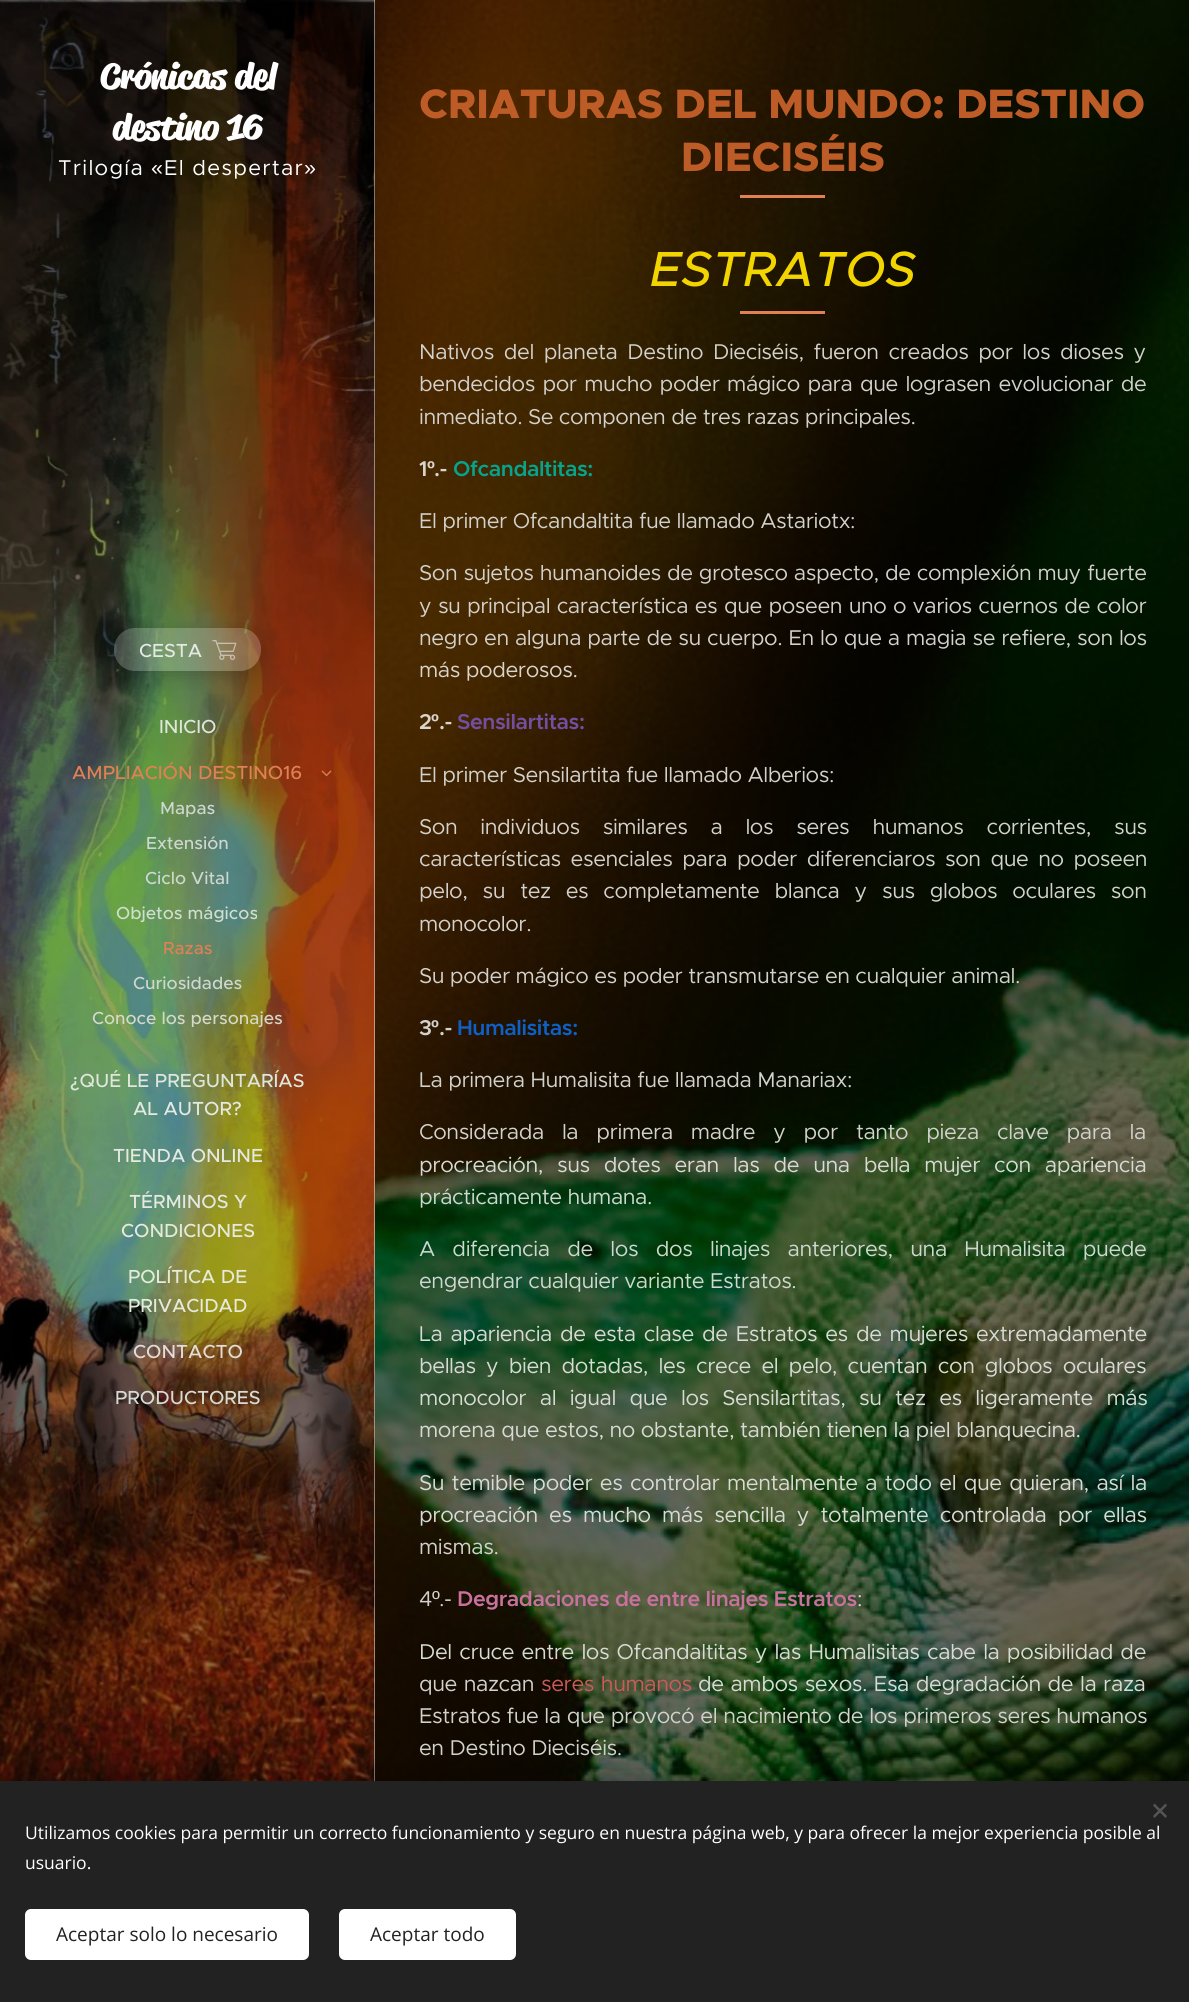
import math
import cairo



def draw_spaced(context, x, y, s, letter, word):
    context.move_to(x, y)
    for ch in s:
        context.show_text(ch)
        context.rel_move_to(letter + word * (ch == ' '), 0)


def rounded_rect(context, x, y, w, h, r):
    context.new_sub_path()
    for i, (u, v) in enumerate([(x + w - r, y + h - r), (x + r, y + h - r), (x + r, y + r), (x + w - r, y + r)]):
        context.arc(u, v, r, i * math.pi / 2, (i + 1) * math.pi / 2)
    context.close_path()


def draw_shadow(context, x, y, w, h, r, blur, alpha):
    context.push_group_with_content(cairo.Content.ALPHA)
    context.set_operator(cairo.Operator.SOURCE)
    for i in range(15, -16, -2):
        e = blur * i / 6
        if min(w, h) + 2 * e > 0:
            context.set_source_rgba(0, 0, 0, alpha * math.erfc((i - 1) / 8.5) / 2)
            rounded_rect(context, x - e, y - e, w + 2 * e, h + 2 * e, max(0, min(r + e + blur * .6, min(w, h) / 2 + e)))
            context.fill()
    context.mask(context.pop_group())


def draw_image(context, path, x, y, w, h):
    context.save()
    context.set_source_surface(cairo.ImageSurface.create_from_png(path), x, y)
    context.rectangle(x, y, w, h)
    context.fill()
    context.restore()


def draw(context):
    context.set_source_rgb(1, 1, 1)
    context.paint()
    draw_image(context, "images/1.png", 0, 0, 375, 1781)
    context.save()
    context.set_fill_rule(cairo.FillRule.EVEN_ODD)
    context.new_path()
    context.move_to(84, 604)
    context.line_to(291, 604)
    context.line_to(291, 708)
    context.line_to(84, 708)
    context.close_path()
    context.move_to(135, 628)
    context.line_to(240, 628)
    context.curve_to(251.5, 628, 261, 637.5, 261, 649)
    context.line_to(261, 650)
    context.curve_to(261, 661.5, 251.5, 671, 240, 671)
    context.line_to(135, 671)
    context.curve_to(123.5, 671, 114, 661.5, 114, 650)
    context.line_to(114, 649)
    context.curve_to(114, 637.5, 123.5, 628, 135, 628)
    context.close_path()
    context.clip()
    context.set_source_rgb(0, 0, 0)
    draw_shadow(context, 114, 634, 147, 44, 21, 9.5, 0.2)
    context.restore()
    context.set_source_rgba(1, 1, 1, 0.2)
    rounded_rect(context, 114, 628, 147, 43, 21)
    context.fill()
    draw_image(context, "images/2.png", 212, 640, 25, 20)
    draw_image(context, "images/3.png", 321, 770, 11, 7)
    context.set_source_rgba(1, 1, 1, 0.3)
    context.rectangle(374, 0, 1, 1781)
    context.fill()
    draw_image(context, "images/4.png", 375, 0, 814, 1781)
    context.set_source_rgb(224 / 255, 128 / 255, 83 / 255)
    context.rectangle(740, 195, 85, 3)
    context.fill()
    context.rectangle(740, 311, 85, 3)
    context.fill()
    context.set_source_rgb(0, 0, 0)
    draw_shadow(context, 0, 1781, 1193, 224, 0, 15.5, 0.33)
    context.set_source_rgb(34 / 255, 34 / 255, 34 / 255)
    context.rectangle(0, 1781, 1189, 221)
    context.fill()
    context.set_source_rgb(85 / 255, 85 / 255, 85 / 255)
    context.new_path()
    context.move_to(1153, 1816)
    context.line_to(1165.5, 1803.5)
    context.line_to(1167, 1805.5)
    context.line_to(1154.5, 1818)
    context.close_path()
    context.fill()
    context.new_path()
    context.move_to(1154.5, 1803.5)
    context.line_to(1167, 1816)
    context.line_to(1165.5, 1818)
    context.line_to(1153, 1805.5)
    context.close_path()
    context.fill()
    context.set_source_rgb(1, 1, 1)
    rounded_rect(context, 25, 1909, 284, 51, 6)
    context.fill()
    rounded_rect(context, 339, 1909, 177, 51, 6)
    context.fill()
    context.select_font_face("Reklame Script", cairo.FontSlant.NORMAL, cairo.FontWeight.BOLD)
    context.set_font_size(35)
    draw_spaced(context, 100, 88, "Crónicas del", -0.43, 0)
    draw_spaced(context, 112, 139, "destino 16", -0.43, 0)
    context.select_font_face("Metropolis")
    context.set_font_size(21.5)
    draw_spaced(context, 58, 175, "Trilogía", 1.25, 0)
    context.select_font_face("Liberation Sans")
    draw_spaced(context, 151, 175, "«", 1.25, 0)
    context.select_font_face("Metropolis")
    draw_spaced(context, 164, 175, "El despertar", 1.25, 0)
    context.select_font_face("Liberation Sans")
    draw_spaced(context, 304, 175, "»", 1.25, 0)
    context.select_font_face("Metropolis Medium")
    context.set_font_size(19)
    context.set_source_rgb(228 / 255, 233 / 255, 226 / 255)
    context.move_to(139, 657)
    context.show_text("CESTA")
    context.set_source_rgb(223 / 255, 230 / 255, 218 / 255)
    context.move_to(159, 733)
    context.show_text("INICIO")
    context.set_source_rgb(224 / 255, 128 / 255, 83 / 255)
    context.move_to(72, 779)
    context.show_text("AMPLIACIÓN DESTINO16")
    context.set_font_size(17.5)
    context.set_source_rgb(206 / 255, 216 / 255, 208 / 255)
    context.move_to(160, 814)
    context.show_text("Mapas")
    context.move_to(146, 849)
    context.show_text("Extensión")
    context.move_to(145, 884)
    context.show_text("Ciclo Vital")
    context.set_source_rgb(208 / 255, 222 / 255, 207 / 255)
    context.move_to(116, 919)
    context.show_text("Objetos mágicos")
    context.set_source_rgb(224 / 255, 128 / 255, 83 / 255)
    context.move_to(163, 954)
    context.show_text("Razas")
    context.set_source_rgb(206 / 255, 216 / 255, 208 / 255)
    context.move_to(133, 989)
    context.show_text("Curiosidades")
    context.set_source_rgb(212 / 255, 217 / 255, 200 / 255)
    context.move_to(92, 1024)
    context.show_text("Conoce los personajes")
    context.set_font_size(19)
    context.set_source_rgb(223 / 255, 230 / 255, 218 / 255)
    context.move_to(70, 1087)
    context.show_text("¿QUÉ LE PREGUNTARÍAS")
    context.set_source_rgb(228 / 255, 233 / 255, 226 / 255)
    context.move_to(133, 1115)
    context.show_text("AL AUTOR?")
    context.move_to(113, 1162)
    context.show_text("TIENDA ONLINE")
    context.move_to(129, 1208)
    context.show_text("TÉRMINOS Y")
    context.set_source_rgb(230 / 255, 234 / 255, 219 / 255)
    context.move_to(121, 1237)
    context.show_text("CONDICIONES")
    context.move_to(128, 1283)
    context.show_text("POLÍTICA DE")
    context.move_to(128, 1312)
    context.show_text("PRIVACIDAD")
    context.set_source_rgb(228 / 255, 221 / 255, 214 / 255)
    context.move_to(133, 1358)
    context.show_text("CONTACTO")
    context.set_source_rgb(216 / 255, 219 / 255, 213 / 255)
    context.move_to(115, 1404)
    context.show_text("PRODUCTORES")
    context.select_font_face("Metropolis ExtraBold")
    context.set_font_size(41.25)
    context.set_source_rgb(189 / 255, 92 / 255, 39 / 255)
    context.move_to(419, 118)
    context.show_text("CRIATURAS DEL MUNDO: DESTINO")
    context.move_to(681, 171)
    context.show_text("DIECISÉIS")
    context.select_font_face("Metropolis Medium", cairo.FontSlant.ITALIC)
    context.set_font_size(49.5)
    context.set_source_rgb(242 / 255, 212 / 255, 0)
    context.move_to(650, 286)
    context.show_text("ESTRATOS")
    context.select_font_face("Metropolis")
    context.set_font_size(21.5)
    context.set_source_rgb(211 / 255, 209 / 255, 204 / 255)
    draw_spaced(context, 419, 359, "Nativos del planeta Destino Dieciséis, fueron creados por los dioses y", -0.43, 4)
    draw_spaced(context, 419, 391, "bendecidos por mucho poder mágico para que lograsen evolucionar de", -0.43, 1.75)
    draw_spaced(context, 419, 424, "inmediato. Se componen de tres razas principales.", -0.43, 0)
    context.select_font_face("Metropolis SemiBold")
    context.set_source_rgb(218 / 255, 212 / 255, 204 / 255)
    draw_spaced(context, 419, 476, "1", -0.43, 0)
    context.select_font_face("Liberation Sans", cairo.FontSlant.NORMAL, cairo.FontWeight.BOLD)
    draw_spaced(context, 427, 476, "º", -0.43, 0)
    context.select_font_face("Metropolis SemiBold")
    context.set_source_rgb(6 / 255, 164 / 255, 141 / 255)
    draw_spaced(context, 453, 476, "Ofcandaltitas:", -0.43, 0)
    context.set_source_rgb(218 / 255, 212 / 255, 204 / 255)
    draw_spaced(context, 434, 476, ".-", -0.43, 0)
    context.select_font_face("Metropolis")
    context.set_source_rgb(211 / 255, 209 / 255, 204 / 255)
    draw_spaced(context, 419, 528, "El primer Ofcandaltita fue llamado Astariotx:", -0.43, 0)
    draw_spaced(context, 419, 580, "Son sujetos humanoides de grotesco aspecto, de complexión muy fuerte", -0.43, 0.4)
    draw_spaced(context, 419, 613, "y su principal característica es que poseen uno o varios cuernos de color", -0.43, 0.75)
    draw_spaced(context, 419, 645, "negro en alguna parte de su cuerpo. En lo que a magia se refiere, son los", -0.43, 0.4)
    context.set_source_rgb(218 / 255, 212 / 255, 204 / 255)
    draw_spaced(context, 419, 677, "más poderosos.", -0.43, 0)
    context.select_font_face("Metropolis SemiBold")
    draw_spaced(context, 419, 729, "2", -0.43, 0)
    context.select_font_face("Liberation Sans", cairo.FontSlant.NORMAL, cairo.FontWeight.BOLD)
    draw_spaced(context, 431, 729, "º", -0.43, 0)
    context.select_font_face("Metropolis SemiBold")
    context.set_source_rgb(114 / 255, 79 / 255, 161 / 255)
    draw_spaced(context, 457, 729, "Sensilartitas:", -0.43, 0)
    context.set_source_rgb(218 / 255, 212 / 255, 204 / 255)
    draw_spaced(context, 439, 729, ".-", -0.43, 0)
    context.select_font_face("Metropolis")
    context.set_source_rgb(211 / 255, 209 / 255, 204 / 255)
    draw_spaced(context, 419, 782, "El primer Sensilartita fue llamado Alberios:", -0.43, 0)
    draw_spaced(context, 419, 834, "Son individuos similares a los seres humanos corrientes, sus", -0.43, 17.25)
    draw_spaced(context, 419, 866, "características esenciales para poder diferenciaros son que no poseen", -0.43, 4)
    draw_spaced(context, 419, 898, "pelo, su tez es completamente blanca y sus globos oculares son", -0.43, 9.25)
    draw_spaced(context, 419, 931, "monocolor.", -0.43, 0)
    draw_spaced(context, 419, 983, "Su poder mágico es poder transmutarse en cualquier animal.", -0.43, 0)
    context.select_font_face("Metropolis SemiBold")
    draw_spaced(context, 419, 1035, "3", -0.43, 0)
    context.select_font_face("Liberation Sans", cairo.FontSlant.NORMAL, cairo.FontWeight.BOLD)
    draw_spaced(context, 431, 1035, "º", -0.43, 0)
    context.select_font_face("Metropolis SemiBold")
    context.set_source_rgb(14 / 255, 96 / 255, 198 / 255)
    draw_spaced(context, 457, 1035, "Humalisitas:", -0.43, 0)
    context.set_source_rgb(211 / 255, 209 / 255, 204 / 255)
    draw_spaced(context, 439, 1035, ".-", -0.43, 0)
    context.select_font_face("Metropolis")
    draw_spaced(context, 419, 1087, "La primera Humalisita fue llamada Manariax:", -0.43, 0)
    draw_spaced(context, 419, 1139, "Considerada la primera madre y por tanto pieza clave para la", -0.43, 12.25)
    context.set_source_rgb(216 / 255, 219 / 255, 213 / 255)
    draw_spaced(context, 419, 1172, "procreación, sus dotes eran las de una bella mujer con apariencia", -0.43, 8.25)
    context.set_source_rgb(206 / 255, 216 / 255, 208 / 255)
    draw_spaced(context, 419, 1204, "prácticamente humana.", -0.43, 0)
    draw_spaced(context, 419, 1256, "A diferencia de los dos linajes anteriores, una Humalisita puede", -0.43, 11.75)
    draw_spaced(context, 419, 1288, "engendrar cualquier variante Estratos.", -0.43, 0)
    context.set_source_rgb(216 / 255, 219 / 255, 213 / 255)
    draw_spaced(context, 419, 1341, "La apariencia de esta clase de Estratos es de mujeres extremadamente", -0.43, 2.25)
    draw_spaced(context, 419, 1373, "bellas y bien dotadas, les crece el pelo, cuentan con globos oculares", -0.43, 4.6)
    draw_spaced(context, 419, 1405, "monocolor al igual que los Sensilartitas, su tez es ligeramente más", -0.43, 7.75)
    draw_spaced(context, 419, 1437, "morena que estos, no obstante, también tienen la piel blanquecina.", -0.43, 0)
    draw_spaced(context, 419, 1490, "Su temible poder es controlar mentalmente a todo el que quieran, así la", -0.43, 1.75)
    draw_spaced(context, 419, 1522, "procreación es mucho más sencilla y totalmente controlada por ellas", -0.43, 5.5)
    context.set_source_rgb(211 / 255, 209 / 255, 204 / 255)
    draw_spaced(context, 419, 1554, "mismas.", -0.43, 0)
    draw_spaced(context, 419, 1606, "4", -0.43, 0)
    context.select_font_face("Liberation Sans")
    draw_spaced(context, 432, 1606, "º", -0.43, 0)
    context.select_font_face("Metropolis")
    draw_spaced(context, 439, 1606, ".-", -0.43, 0)
    context.select_font_face("Metropolis SemiBold")
    context.set_source_rgb(200 / 255, 113 / 255, 158 / 255)
    draw_spaced(context, 457, 1606, "Degradaciones de entre linajes Estratos", -0.43, 0)
    context.select_font_face("Metropolis")
    context.set_source_rgb(216 / 255, 219 / 255, 213 / 255)
    draw_spaced(context, 857, 1606, ":", -0.43, 0)
    draw_spaced(context, 419, 1659, "Del cruce entre los Ofcandaltitas y las Humalisitas cabe la posibilidad de", -0.43, 1.6)
    context.set_source_rgb(211 / 255, 209 / 255, 204 / 255)
    draw_spaced(context, 419, 1691, "que nazcan", -0.43, 1)
    context.set_source_rgb(204 / 255, 90 / 255, 90 / 255)
    draw_spaced(context, 541, 1691, "seres humanos", -0.43, 1)
    context.set_source_rgb(216 / 255, 219 / 255, 213 / 255)
    draw_spaced(context, 698, 1691, "de ambos sexos. Esa degradación de la raza", -0.43, 1)
    context.set_source_rgb(211 / 255, 209 / 255, 204 / 255)
    draw_spaced(context, 419, 1723, "Estratos fue la que provocó el nacimiento de los primeros seres humanos", -0.43, 0.25)
    draw_spaced(context, 419, 1755, "en Destino Dieciséis.", -0.43, 0)
    context.select_font_face("Open Sans")
    context.set_font_size(17.5)
    context.set_source_rgb(1, 1, 1)
    context.move_to(25, 1839)
    context.show_text("Utilizamos cookies para permitir un correcto funcionamiento y seguro en nuestra página web, y para ofrecer la mejor experiencia posible al")
    context.move_to(25, 1869)
    context.show_text("usuario.")
    context.set_font_size(19)
    context.set_source_rgb(34 / 255, 34 / 255, 34 / 255)
    context.move_to(56, 1941)
    context.show_text("Aceptar solo lo necesario")
    context.move_to(370, 1941)
    context.show_text("Aceptar todo")


surface = cairo.ImageSurface(cairo.Format.RGB24, 1189, 2002)
context = cairo.Context(surface)
options = cairo.FontOptions()
options.set_hint_metrics(cairo.HintMetrics.OFF)
options.set_hint_style(cairo.HintStyle.NONE)
context.set_font_options(options)
context.set_miter_limit(4)
draw(context)
surface.write_to_png("out.png")
